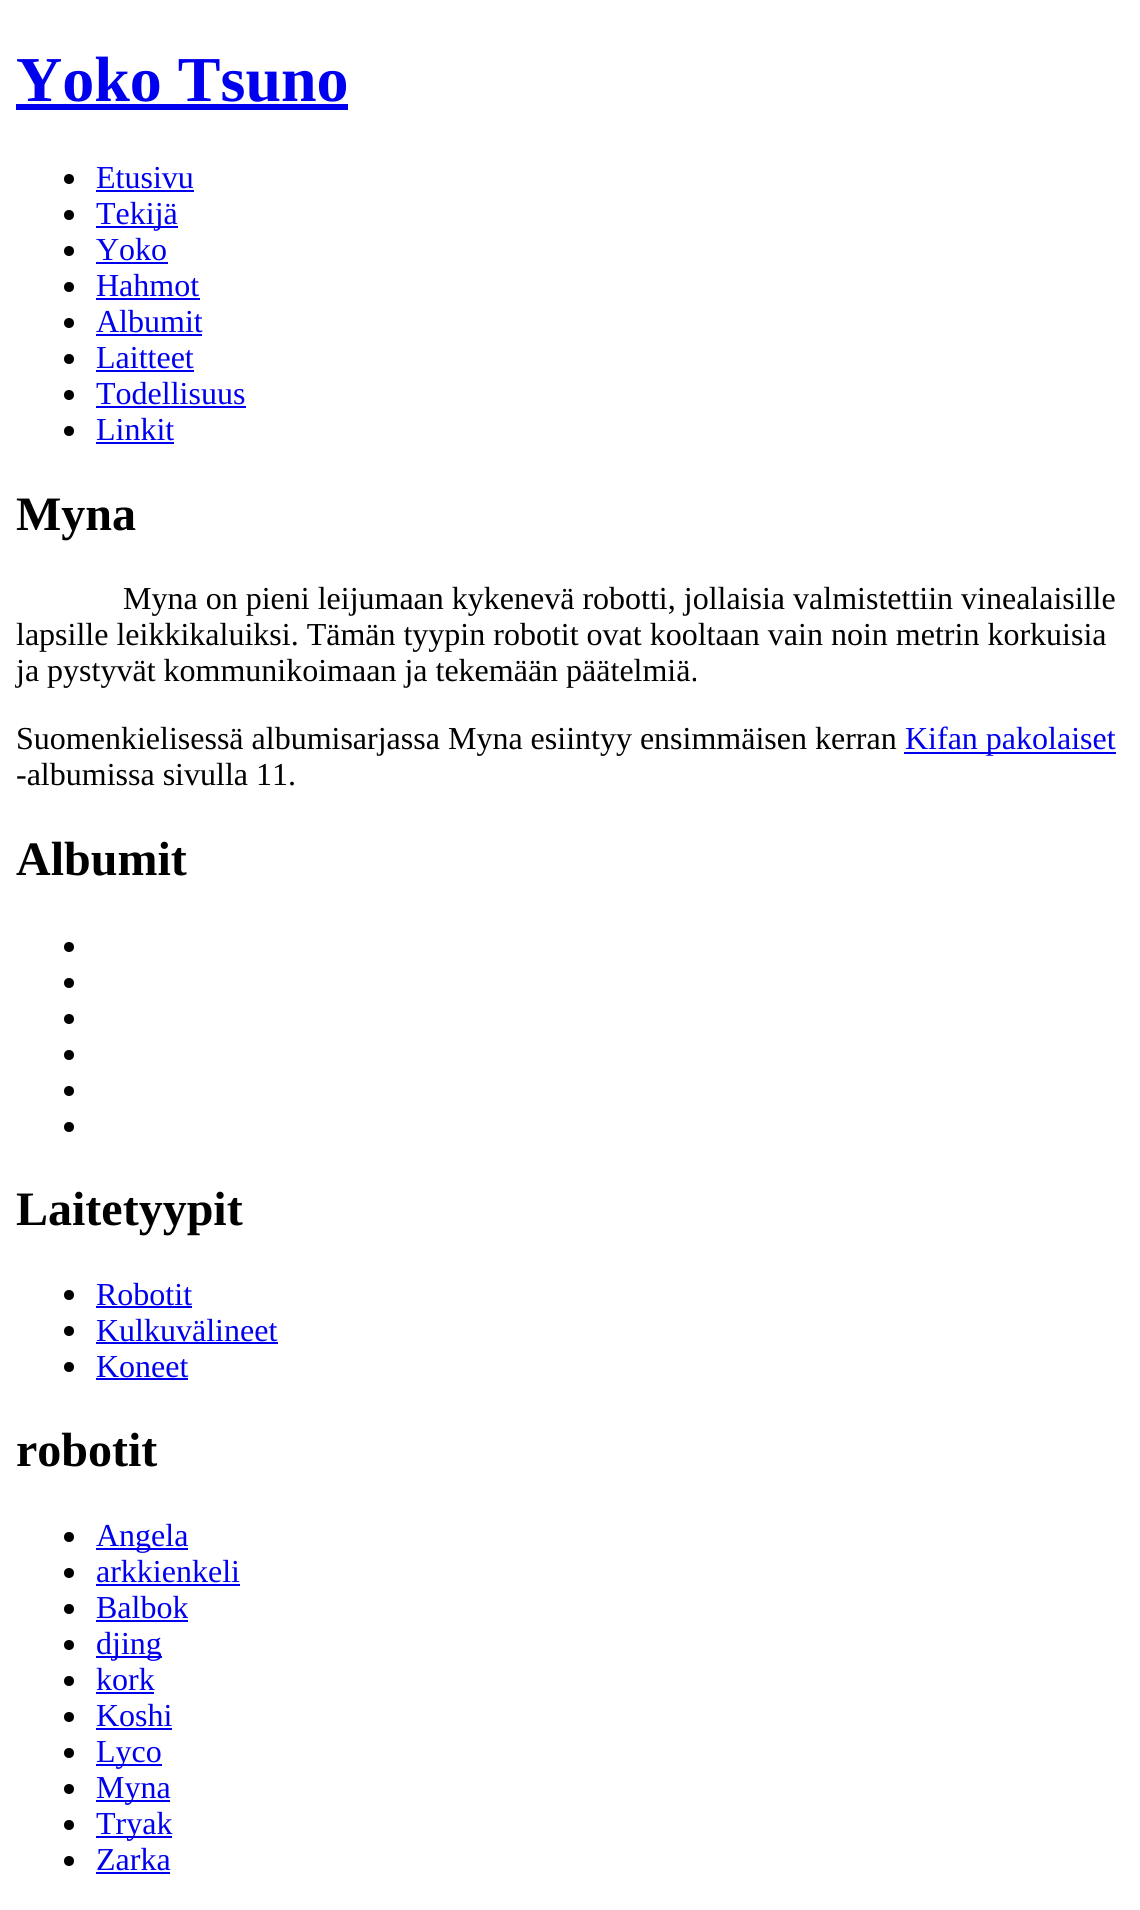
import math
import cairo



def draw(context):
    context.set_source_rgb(1, 1, 1)
    context.paint()
    context.set_source_rgb(0, 0, 238 / 255)
    context.rectangle(16, 104, 332, 6)
    context.fill()
    context.set_source_rgb(0, 0, 0)
    context.arc(69, 179, 5, 0, 2 * math.pi)
    context.fill()
    context.set_source_rgb(0, 0, 238 / 255)
    context.rectangle(96, 190, 98, 2)
    context.fill()
    context.set_source_rgb(0, 0, 0)
    context.arc(69, 215, 5, 0, 2 * math.pi)
    context.fill()
    context.set_source_rgb(0, 0, 238 / 255)
    context.rectangle(96, 226, 82, 2)
    context.fill()
    context.set_source_rgb(0, 0, 0)
    context.arc(69, 251, 5, 0, 2 * math.pi)
    context.fill()
    context.set_source_rgb(0, 0, 238 / 255)
    context.rectangle(96, 262, 72, 2)
    context.fill()
    context.set_source_rgb(0, 0, 0)
    context.arc(69, 287, 5, 0, 2 * math.pi)
    context.fill()
    context.set_source_rgb(0, 0, 238 / 255)
    context.rectangle(96, 298, 104, 2)
    context.fill()
    context.set_source_rgb(0, 0, 0)
    context.arc(69, 323, 5, 0, 2 * math.pi)
    context.fill()
    context.set_source_rgb(0, 0, 238 / 255)
    context.rectangle(96, 334, 106, 2)
    context.fill()
    context.set_source_rgb(0, 0, 0)
    context.arc(69, 359, 5, 0, 2 * math.pi)
    context.fill()
    context.set_source_rgb(0, 0, 238 / 255)
    context.rectangle(96, 370, 98, 2)
    context.fill()
    context.set_source_rgb(0, 0, 0)
    context.arc(69, 395, 5, 0, 2 * math.pi)
    context.fill()
    context.set_source_rgb(0, 0, 238 / 255)
    context.rectangle(96, 406, 150, 2)
    context.fill()
    context.set_source_rgb(0, 0, 0)
    context.arc(69, 431, 5, 0, 2 * math.pi)
    context.fill()
    context.set_source_rgb(0, 0, 238 / 255)
    context.rectangle(96, 442, 78, 2)
    context.fill()
    context.rectangle(904, 752, 212, 2)
    context.fill()
    context.set_source_rgb(0, 0, 0)
    context.arc(69, 947, 5, 0, 2 * math.pi)
    context.fill()
    context.arc(69, 983, 5, 0, 2 * math.pi)
    context.fill()
    context.arc(69, 1019, 5, 0, 2 * math.pi)
    context.fill()
    context.arc(69, 1055, 5, 0, 2 * math.pi)
    context.fill()
    context.arc(69, 1091, 5, 0, 2 * math.pi)
    context.fill()
    context.arc(69, 1127, 5, 0, 2 * math.pi)
    context.fill()
    context.arc(69, 1295, 5, 0, 2 * math.pi)
    context.fill()
    context.set_source_rgb(0, 0, 238 / 255)
    context.rectangle(96, 1306, 96, 2)
    context.fill()
    context.set_source_rgb(0, 0, 0)
    context.arc(69, 1331, 5, 0, 2 * math.pi)
    context.fill()
    context.set_source_rgb(0, 0, 238 / 255)
    context.rectangle(96, 1342, 182, 2)
    context.fill()
    context.set_source_rgb(0, 0, 0)
    context.arc(69, 1367, 5, 0, 2 * math.pi)
    context.fill()
    context.set_source_rgb(0, 0, 238 / 255)
    context.rectangle(96, 1378, 92, 2)
    context.fill()
    context.set_source_rgb(0, 0, 0)
    context.arc(69, 1537, 5, 0, 2 * math.pi)
    context.fill()
    context.set_source_rgb(0, 0, 238 / 255)
    context.rectangle(96, 1548, 92, 2)
    context.fill()
    context.set_source_rgb(0, 0, 0)
    context.arc(69, 1573, 5, 0, 2 * math.pi)
    context.fill()
    context.set_source_rgb(0, 0, 238 / 255)
    context.rectangle(96, 1584, 144, 2)
    context.fill()
    context.set_source_rgb(0, 0, 0)
    context.arc(69, 1609, 5, 0, 2 * math.pi)
    context.fill()
    context.set_source_rgb(0, 0, 238 / 255)
    context.rectangle(96, 1620, 92, 2)
    context.fill()
    context.set_source_rgb(0, 0, 0)
    context.arc(69, 1645, 5, 0, 2 * math.pi)
    context.fill()
    context.set_source_rgb(0, 0, 238 / 255)
    context.rectangle(96, 1656, 66, 2)
    context.fill()
    context.set_source_rgb(0, 0, 0)
    context.arc(69, 1681, 5, 0, 2 * math.pi)
    context.fill()
    context.set_source_rgb(0, 0, 238 / 255)
    context.rectangle(96, 1692, 58, 2)
    context.fill()
    context.set_source_rgb(0, 0, 0)
    context.arc(69, 1717, 5, 0, 2 * math.pi)
    context.fill()
    context.set_source_rgb(0, 0, 238 / 255)
    context.rectangle(96, 1728, 76, 2)
    context.fill()
    context.set_source_rgb(0, 0, 0)
    context.arc(69, 1753, 5, 0, 2 * math.pi)
    context.fill()
    context.set_source_rgb(0, 0, 238 / 255)
    context.rectangle(96, 1764, 66, 2)
    context.fill()
    context.set_source_rgb(0, 0, 0)
    context.arc(69, 1789, 5, 0, 2 * math.pi)
    context.fill()
    context.set_source_rgb(0, 0, 238 / 255)
    context.rectangle(96, 1800, 74, 2)
    context.fill()
    context.set_source_rgb(0, 0, 0)
    context.arc(69, 1825, 5, 0, 2 * math.pi)
    context.fill()
    context.set_source_rgb(0, 0, 238 / 255)
    context.rectangle(96, 1836, 76, 2)
    context.fill()
    context.set_source_rgb(0, 0, 0)
    context.arc(69, 1861, 5, 0, 2 * math.pi)
    context.fill()
    context.set_source_rgb(0, 0, 238 / 255)
    context.rectangle(96, 1872, 74, 2)
    context.fill()
    context.select_font_face("Liberation Serif", cairo.FontSlant.NORMAL, cairo.FontWeight.BOLD)
    context.set_font_size(64)
    context.move_to(16, 101)
    context.show_text("Yoko Tsuno")
    context.select_font_face("Liberation Serif")
    context.set_font_size(32)
    context.move_to(96, 188)
    context.show_text("Etusivu")
    context.move_to(96, 224)
    context.show_text("Tekijä")
    context.move_to(96, 260)
    context.show_text("Yoko")
    context.move_to(96, 296)
    context.show_text("Hahmot")
    context.move_to(96, 332)
    context.show_text("Albumit")
    context.move_to(96, 368)
    context.show_text("Laitteet")
    context.move_to(96, 404)
    context.show_text("Todellisuus")
    context.move_to(96, 440)
    context.show_text("Linkit")
    context.select_font_face("Liberation Serif", cairo.FontSlant.NORMAL, cairo.FontWeight.BOLD)
    context.set_font_size(48)
    context.set_source_rgb(0, 0, 0)
    context.move_to(16, 530)
    context.show_text("Myna")
    context.select_font_face("Liberation Serif")
    context.set_font_size(32)
    context.move_to(123, 609)
    context.show_text("Myna on pieni leijumaan kykenevä robotti, jollaisia valmistettiin vinealaisille")
    context.move_to(16, 645)
    context.show_text("lapsille leikkikaluiksi. Tämän tyypin robotit ovat kooltaan vain noin metrin korkuisia")
    context.move_to(16, 681)
    context.show_text("ja pystyvät kommunikoimaan ja tekemään päätelmiä.")
    context.move_to(16, 749)
    context.show_text("Suomenkielisessä albumisarjassa Myna esiintyy ensimmäisen kerran")
    context.set_source_rgb(0, 0, 238 / 255)
    context.move_to(905, 749)
    context.show_text("Kifan pakolaiset")
    context.set_source_rgb(0, 0, 0)
    context.move_to(16, 785)
    context.show_text("-albumissa sivulla 11.")
    context.select_font_face("Liberation Serif", cairo.FontSlant.NORMAL, cairo.FontWeight.BOLD)
    context.set_font_size(48)
    context.move_to(16, 875)
    context.show_text("Albumit")
    context.move_to(16, 1225)
    context.show_text("Laitetyypit")
    context.select_font_face("Liberation Serif")
    context.set_font_size(32)
    context.set_source_rgb(0, 0, 238 / 255)
    context.move_to(96, 1305)
    context.show_text("Robotit")
    context.move_to(96, 1341)
    context.show_text("Kulkuvälineet")
    context.move_to(96, 1377)
    context.show_text("Koneet")
    context.select_font_face("Liberation Serif", cairo.FontSlant.NORMAL, cairo.FontWeight.BOLD)
    context.set_font_size(48)
    context.set_source_rgb(0, 0, 0)
    context.move_to(16, 1466)
    context.show_text("robotit")
    context.select_font_face("Liberation Serif")
    context.set_font_size(32)
    context.set_source_rgb(0, 0, 238 / 255)
    context.move_to(96, 1546)
    context.show_text("Angela")
    context.move_to(96, 1582)
    context.show_text("arkkienkeli")
    context.move_to(96, 1618)
    context.show_text("Balbok")
    context.move_to(96, 1654)
    context.show_text("djing")
    context.move_to(96, 1690)
    context.show_text("kork")
    context.move_to(96, 1726)
    context.show_text("Koshi")
    context.move_to(96, 1762)
    context.show_text("Lyco")
    context.move_to(96, 1798)
    context.show_text("Myna")
    context.move_to(96, 1834)
    context.show_text("Tryak")
    context.move_to(96, 1870)
    context.show_text("Zarka")


surface = cairo.ImageSurface(cairo.Format.RGB24, 1140, 1910)
context = cairo.Context(surface)
options = cairo.FontOptions()
options.set_hint_metrics(cairo.HintMetrics.OFF)
options.set_hint_style(cairo.HintStyle.NONE)
context.set_font_options(options)
context.set_miter_limit(4)
draw(context)
surface.write_to_png("out.png")
